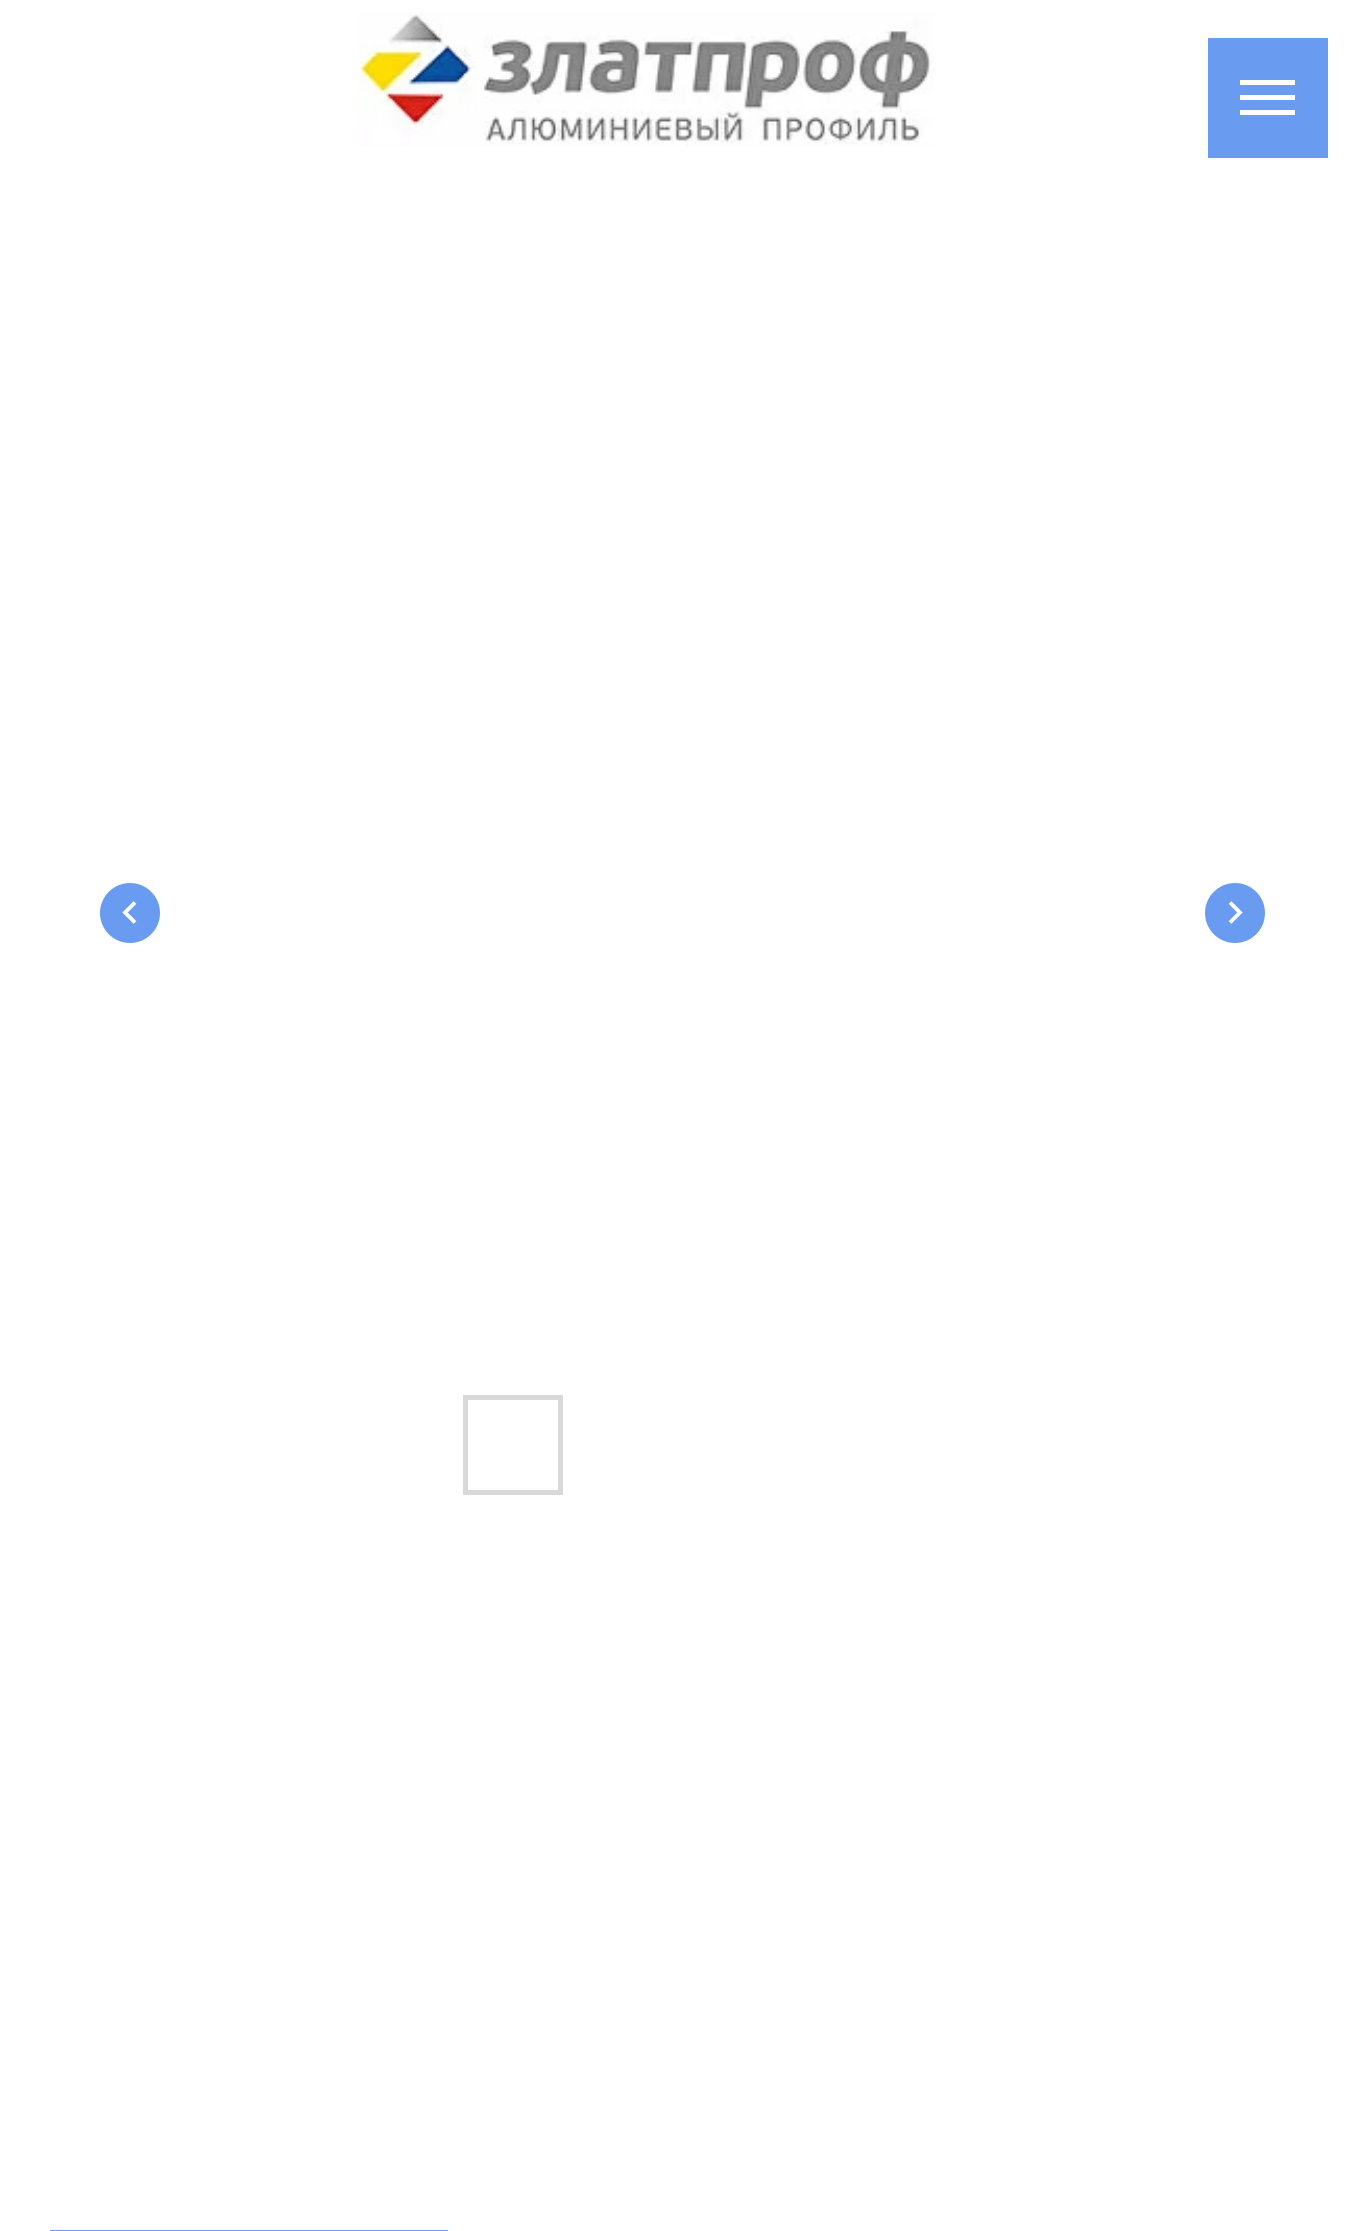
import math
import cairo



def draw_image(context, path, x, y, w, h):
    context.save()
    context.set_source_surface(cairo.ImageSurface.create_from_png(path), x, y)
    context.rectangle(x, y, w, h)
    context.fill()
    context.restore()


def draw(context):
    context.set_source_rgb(1, 1, 1)
    context.paint()
    draw_image(context, "images/1.png", 359, 12, 576, 135)
    context.set_source_rgb(105 / 255, 155 / 255, 240 / 255)
    context.rectangle(1208, 38, 120, 120)
    context.fill()
    context.set_source_rgb(1, 1, 1)
    context.rectangle(1240, 80, 55, 5)
    context.fill()
    context.rectangle(1240, 95, 55, 5)
    context.fill()
    context.rectangle(1240, 110, 55, 5)
    context.fill()
    context.set_source_rgb(105 / 255, 155 / 255, 240 / 255)
    context.arc(130, 913, 30, 0, 2 * math.pi)
    context.fill()
    context.new_path()
    context.move_to(135, 922.5)
    context.line_to(125, 912.5)
    context.line_to(135, 902.5)
    context.set_source_rgb(1, 1, 1)
    context.set_line_width(3.8)
    context.stroke()
    context.set_source_rgb(105 / 255, 155 / 255, 240 / 255)
    context.arc(1235, 913, 30, 0, 2 * math.pi)
    context.fill()
    context.new_path()
    context.move_to(1230, 902.5)
    context.line_to(1240, 912.5)
    context.line_to(1230, 922.5)
    context.set_source_rgb(1, 1, 1)
    context.stroke()
    context.rectangle(465.5, 1397.5, 95, 95)
    context.set_source_rgb(217 / 255, 217 / 255, 217 / 255)
    context.set_line_width(5)
    context.stroke()
    context.set_source_rgb(105 / 255, 155 / 255, 240 / 255)
    context.rectangle(50, 2230, 398, 1)
    context.fill()


surface = cairo.ImageSurface(cairo.Format.RGB24, 1363, 2231)
context = cairo.Context(surface)
options = cairo.FontOptions()
options.set_hint_metrics(cairo.HintMetrics.OFF)
options.set_hint_style(cairo.HintStyle.NONE)
context.set_font_options(options)
context.set_miter_limit(4)
draw(context)
surface.write_to_png("out.png")
